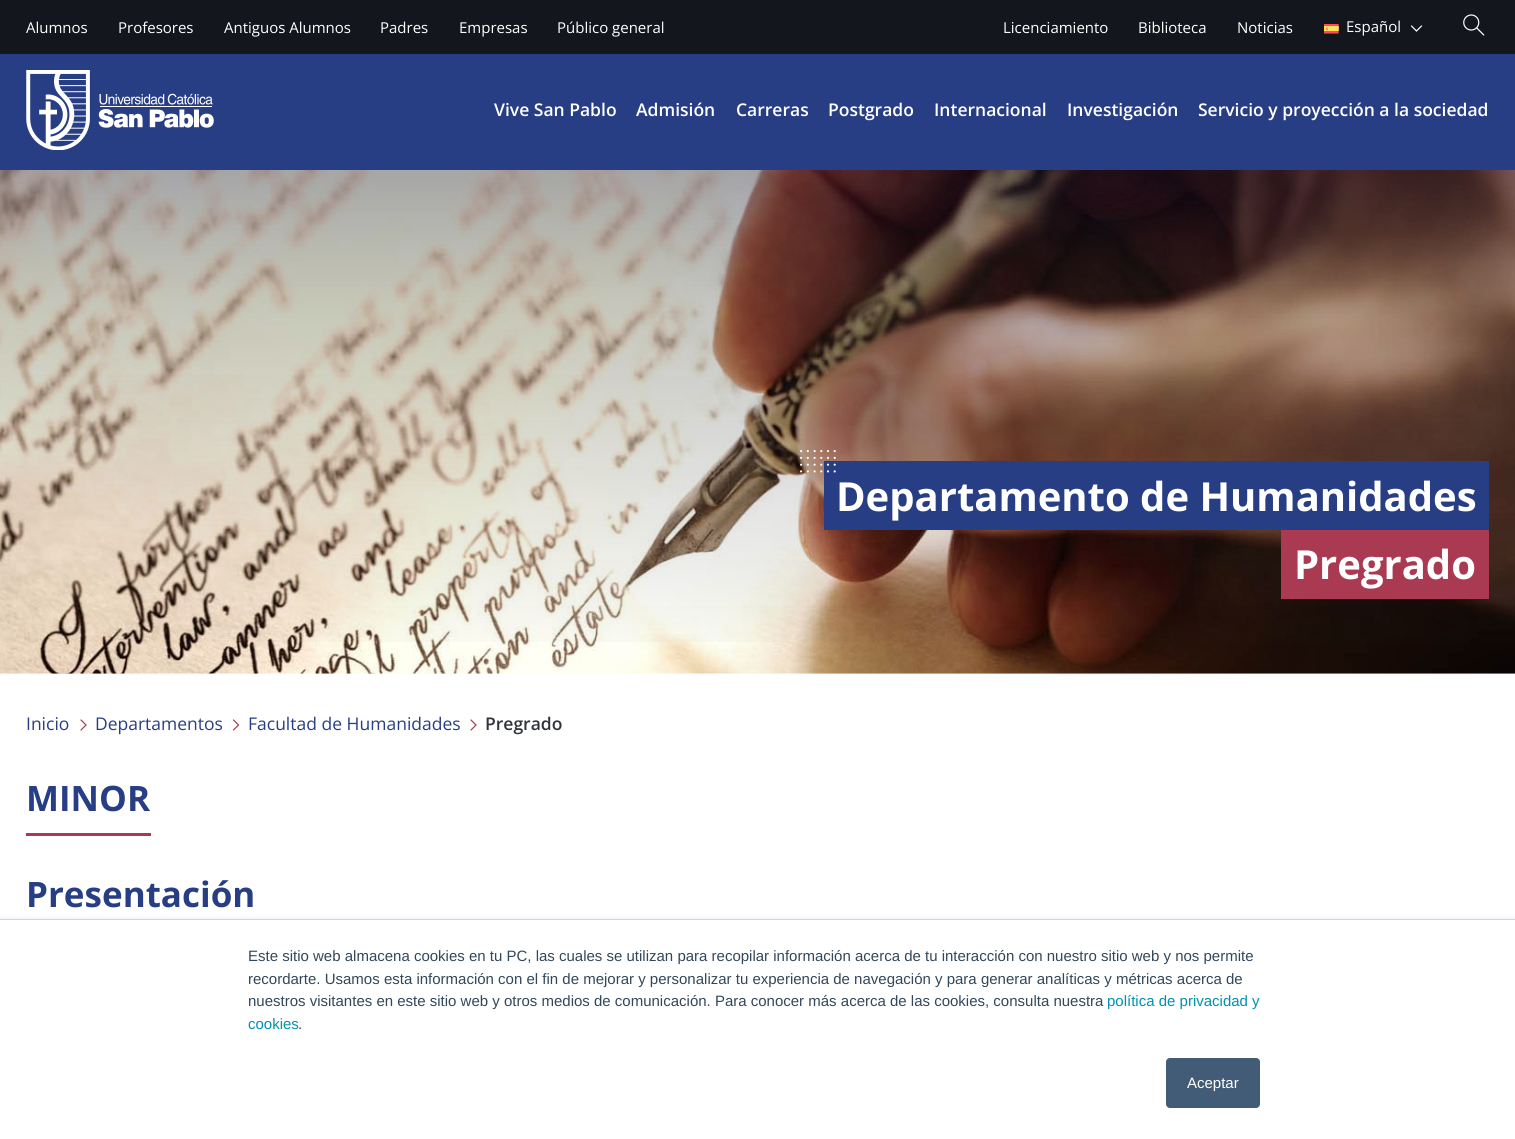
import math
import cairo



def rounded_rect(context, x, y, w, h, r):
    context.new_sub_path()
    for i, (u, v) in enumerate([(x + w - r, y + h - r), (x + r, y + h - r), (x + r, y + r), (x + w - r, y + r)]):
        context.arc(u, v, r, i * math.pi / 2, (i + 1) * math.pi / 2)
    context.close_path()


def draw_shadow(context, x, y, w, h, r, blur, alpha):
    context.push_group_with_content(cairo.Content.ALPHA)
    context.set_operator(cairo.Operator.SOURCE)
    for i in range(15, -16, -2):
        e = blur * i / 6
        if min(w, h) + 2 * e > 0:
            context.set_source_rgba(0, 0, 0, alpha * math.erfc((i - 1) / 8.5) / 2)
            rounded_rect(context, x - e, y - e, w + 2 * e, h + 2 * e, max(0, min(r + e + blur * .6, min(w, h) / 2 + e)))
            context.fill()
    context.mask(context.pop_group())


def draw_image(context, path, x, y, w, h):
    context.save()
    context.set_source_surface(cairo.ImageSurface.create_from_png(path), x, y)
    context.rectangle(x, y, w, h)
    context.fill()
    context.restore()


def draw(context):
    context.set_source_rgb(1, 1, 1)
    context.paint()
    context.set_source_rgb(20 / 255, 22 / 255, 29 / 255)
    context.rectangle(0, 0, 1515, 54)
    context.fill()
    draw_image(context, "images/1.png", 1324, 24, 15, 10)
    context.new_path()
    context.move_to(1411.5, 26)
    context.line_to(1416.5, 31)
    context.line_to(1421.5, 26)
    context.set_source_rgb(1, 1, 1)
    context.set_line_width(1.2)
    context.set_line_cap(cairo.LineCap.ROUND)
    context.stroke()
    draw_image(context, "images/2.png", 1463, 14, 22, 22)
    context.set_source_rgb(40 / 255, 62 / 255, 132 / 255)
    context.rectangle(0, 54, 1515, 116)
    context.fill()
    draw_image(context, "images/3.png", 26, 70, 188, 80)
    draw_image(context, "images/4.png", 0, 170, 1515, 504)
    gradient = cairo.LinearGradient(758, 149, 758, 674)
    gradient.add_color_stop_rgba(0, 2 / 255, 0, 36 / 255, 0.37)
    gradient.add_color_stop_rgba(0.3, 32 / 255, 32 / 255, 32 / 255, 0.25)
    gradient.add_color_stop_rgba(1, 32 / 255, 32 / 255, 32 / 255, 0)
    context.set_source(gradient)
    context.rectangle(0, 170, 1515, 472)
    context.fill()
    context.set_source_rgb(40 / 255, 62 / 255, 132 / 255)
    context.rectangle(824, 461, 665, 69)
    context.fill()
    draw_image(context, "images/5.png", 800, 450, 36, 23)
    context.set_source_rgb(170 / 255, 58 / 255, 81 / 255)
    context.rectangle(1281, 530, 208, 69)
    context.fill()
    context.new_path()
    context.move_to(81, 730)
    context.line_to(86, 725)
    context.line_to(81, 720)
    context.stroke()
    context.new_path()
    context.move_to(233.5, 730)
    context.line_to(238.5, 725)
    context.line_to(233.5, 720)
    context.stroke()
    context.new_path()
    context.move_to(471, 730)
    context.line_to(476, 725)
    context.line_to(471, 720)
    context.stroke()
    context.rectangle(26, 833, 125, 3)
    context.fill()
    context.set_source_rgb(234 / 255, 240 / 255, 246 / 255)
    draw_shadow(context, 0, 918, 1515, 221, 0, 2, 1)
    context.set_source_rgb(1, 1, 1)
    context.rectangle(0, 920, 1515, 219)
    context.fill()
    context.set_source_rgb(203 / 255, 214 / 255, 226 / 255)
    context.rectangle(0, 919, 1515, 1)
    context.fill()
    context.set_source_rgb(66 / 255, 91 / 255, 118 / 255)
    rounded_rect(context, 1166.5, 1058.5, 93, 49, 3.5)
    context.fill_preserve()
    context.set_line_width(1)
    context.set_line_cap(cairo.LineCap.BUTT)
    context.stroke()
    context.select_font_face("Open Sans")
    context.set_font_size(15)
    context.set_source_rgb(1, 1, 1)
    context.move_to(26, 33)
    context.show_text("Alumnos")
    context.move_to(118, 33)
    context.show_text("Profesores")
    context.move_to(224, 33)
    context.show_text("Antiguos Alumnos")
    context.move_to(380, 33)
    context.show_text("Padres")
    context.move_to(459, 33)
    context.show_text("Empresas")
    context.move_to(557, 33)
    context.show_text("Público general")
    context.move_to(1003, 33)
    context.show_text("Licenciamiento")
    context.move_to(1138, 33)
    context.show_text("Biblioteca")
    context.move_to(1237, 33)
    context.show_text("Noticias")
    context.move_to(1346, 32)
    context.show_text("Español")
    context.select_font_face("Open Sans SemiBold")
    context.set_font_size(17.5)
    context.move_to(494, 116)
    context.show_text("Vive San Pablo")
    context.move_to(636, 116)
    context.show_text("Admisión")
    context.move_to(736, 116)
    context.show_text("Carreras")
    context.move_to(828, 116)
    context.show_text("Postgrado")
    context.move_to(934, 116)
    context.show_text("Internacional")
    context.move_to(1067, 116)
    context.show_text("Investigación")
    context.move_to(1198, 116)
    context.show_text("Servicio y proyección a la sociedad")
    context.select_font_face("Open Sans", cairo.FontSlant.NORMAL, cairo.FontWeight.BOLD)
    context.set_font_size(40)
    context.move_to(836, 511)
    context.show_text("Departamento de Humanidades")
    context.move_to(1294, 579)
    context.show_text("Pregrado")
    context.select_font_face("Open Sans")
    context.set_font_size(17.5)
    context.set_source_rgb(40 / 255, 62 / 255, 132 / 255)
    context.move_to(26, 730)
    context.show_text("Inicio")
    context.move_to(95, 730)
    context.show_text("Departamentos")
    context.move_to(248, 730)
    context.show_text("Facultad de Humanidades")
    context.select_font_face("Open Sans SemiBold")
    context.set_source_rgb(48 / 255, 51 / 255, 62 / 255)
    context.move_to(485, 730)
    context.show_text("Pregrado")
    context.select_font_face("Open Sans", cairo.FontSlant.NORMAL, cairo.FontWeight.BOLD)
    context.set_font_size(35)
    context.set_source_rgb(40 / 255, 62 / 255, 132 / 255)
    context.move_to(26, 811)
    context.show_text("MINOR")
    context.move_to(26, 907)
    context.show_text("Presentación")
    context.select_font_face("Liberation Sans")
    context.set_font_size(15)
    context.set_source_rgb(51 / 255, 71 / 255, 91 / 255)
    context.move_to(248, 961)
    context.show_text("Este sitio web almacena cookies en tu PC, las cuales se utilizan para recopilar información acerca de tu interacción con nuestro sitio web y nos permite")
    context.move_to(248, 984)
    context.show_text("recordarte. Usamos esta información con el fin de mejorar y personalizar tu experiencia de navegación y para generar analíticas y métricas acerca de")
    context.move_to(248, 1006)
    context.show_text("nuestros visitantes en este sitio web y otros medios de comunicación. Para conocer más acerca de las cookies, consulta nuestra")
    context.set_source_rgb(0, 145 / 255, 174 / 255)
    context.move_to(1107, 1006)
    context.show_text("política de privacidad y")
    context.move_to(248, 1029)
    context.show_text("cookies")
    context.set_source_rgb(51 / 255, 71 / 255, 91 / 255)
    context.move_to(298, 1029)
    context.show_text(".")
    context.set_source_rgb(1, 1, 1)
    context.move_to(1187, 1088)
    context.show_text("Aceptar")


surface = cairo.ImageSurface(cairo.Format.RGB24, 1515, 1139)
context = cairo.Context(surface)
options = cairo.FontOptions()
options.set_hint_metrics(cairo.HintMetrics.OFF)
options.set_hint_style(cairo.HintStyle.NONE)
context.set_font_options(options)
context.set_miter_limit(4)
draw(context)
surface.write_to_png("out.png")
